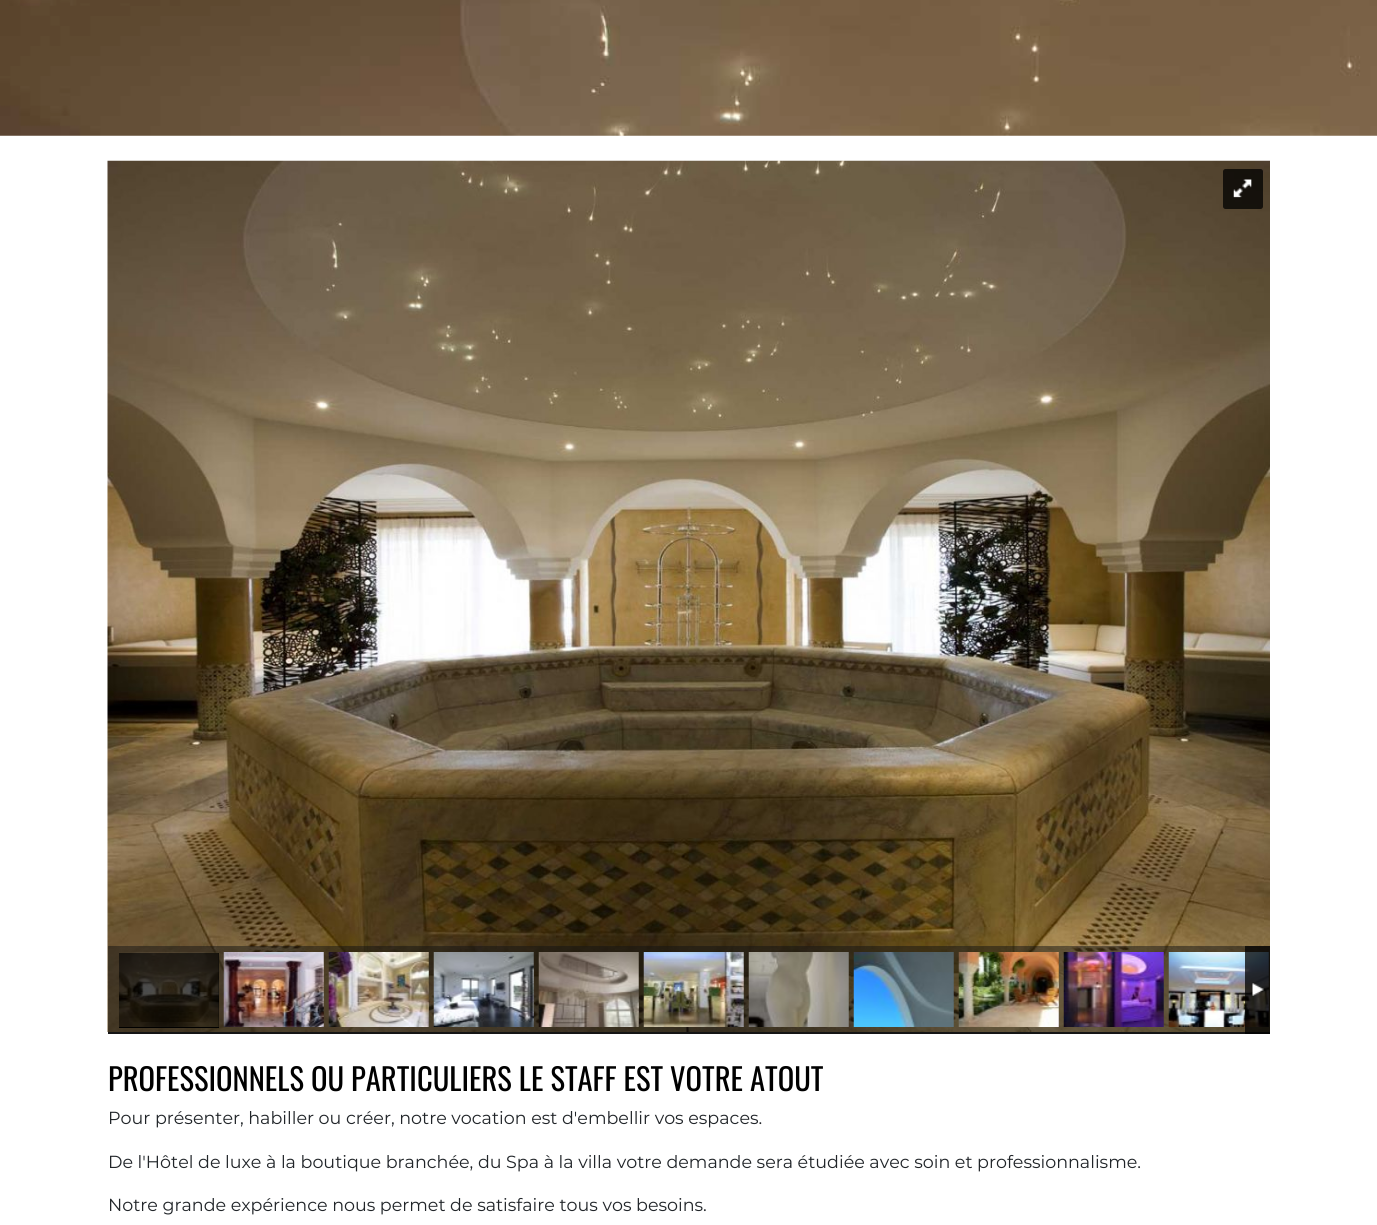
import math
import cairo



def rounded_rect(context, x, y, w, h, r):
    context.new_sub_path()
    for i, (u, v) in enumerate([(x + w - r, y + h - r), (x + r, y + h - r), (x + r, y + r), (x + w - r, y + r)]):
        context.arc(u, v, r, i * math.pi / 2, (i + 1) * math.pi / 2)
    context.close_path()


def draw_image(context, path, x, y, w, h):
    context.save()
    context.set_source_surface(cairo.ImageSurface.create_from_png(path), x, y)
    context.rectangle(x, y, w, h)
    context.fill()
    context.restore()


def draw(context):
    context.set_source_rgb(1, 1, 1)
    context.paint()
    draw_image(context, "images/1.png", 0, 0, 1377, 136)
    context.set_source_rgb(21 / 255, 21 / 255, 21 / 255)
    context.rectangle(108, 1032, 1162, 2)
    context.fill()
    draw_image(context, "images/2.png", 107, 160, 1163, 872)
    context.set_source_rgba(0, 0, 0, 0.75)
    rounded_rect(context, 1223, 169, 40, 40, 2.5)
    context.fill()
    draw_image(context, "images/3.png", 1233, 179, 19, 19)
    context.set_source_rgba(20 / 255, 20 / 255, 20 / 255, 0.5)
    context.rectangle(108, 946, 1162, 86)
    context.fill()
    draw_image(context, "images/15.png", 1168, 952, 101, 75)
    context.set_source_rgba(0, 0, 0, 0.75)
    context.rectangle(1245, 946, 25, 88)
    context.fill()
    draw_image(context, "images/4.png", 1252, 983, 12, 13)
    context.set_source_rgb(0, 0, 0)
    context.rectangle(119, 953, 100, 75)
    context.fill()
    draw_image(context, "images/5.png", 119, 952, 100, 75)
    draw_image(context, "images/6.png", 223, 952, 101, 75)
    draw_image(context, "images/7.png", 328, 952, 101, 75)
    draw_image(context, "images/8.png", 433, 952, 101, 75)
    draw_image(context, "images/9.png", 538, 952, 101, 75)
    draw_image(context, "images/10.png", 643, 952, 101, 75)
    draw_image(context, "images/11.png", 748, 952, 101, 75)
    draw_image(context, "images/12.png", 853, 952, 101, 75)
    draw_image(context, "images/13.png", 958, 952, 101, 75)
    draw_image(context, "images/14.png", 1063, 952, 101, 75)
    context.select_font_face("Oswald")
    context.set_font_size(30.6)
    context.move_to(108, 1091)
    context.show_text("PROFESSIONNELS OU PARTICULIERS LE STAFF EST VOTRE ATOUT")
    context.select_font_face("Montserrat")
    context.set_font_size(17.5)
    context.set_source_rgb(33 / 255, 37 / 255, 41 / 255)
    context.move_to(108, 1124)
    context.show_text("Pour présenter, habiller ou créer, notre vocation est d'embellir vos espaces.")
    context.move_to(108, 1168)
    context.show_text("De l'Hôtel de luxe à la boutique branchée, du Spa à la villa votre demande sera étudiée avec soin et professionnalisme.")
    context.move_to(108, 1211)
    context.show_text("Notre grande expérience nous permet de satisfaire tous vos besoins.")


surface = cairo.ImageSurface(cairo.Format.RGB24, 1377, 1225)
context = cairo.Context(surface)
options = cairo.FontOptions()
options.set_hint_metrics(cairo.HintMetrics.OFF)
options.set_hint_style(cairo.HintStyle.NONE)
context.set_font_options(options)
context.set_miter_limit(4)
draw(context)
surface.write_to_png("out.png")
